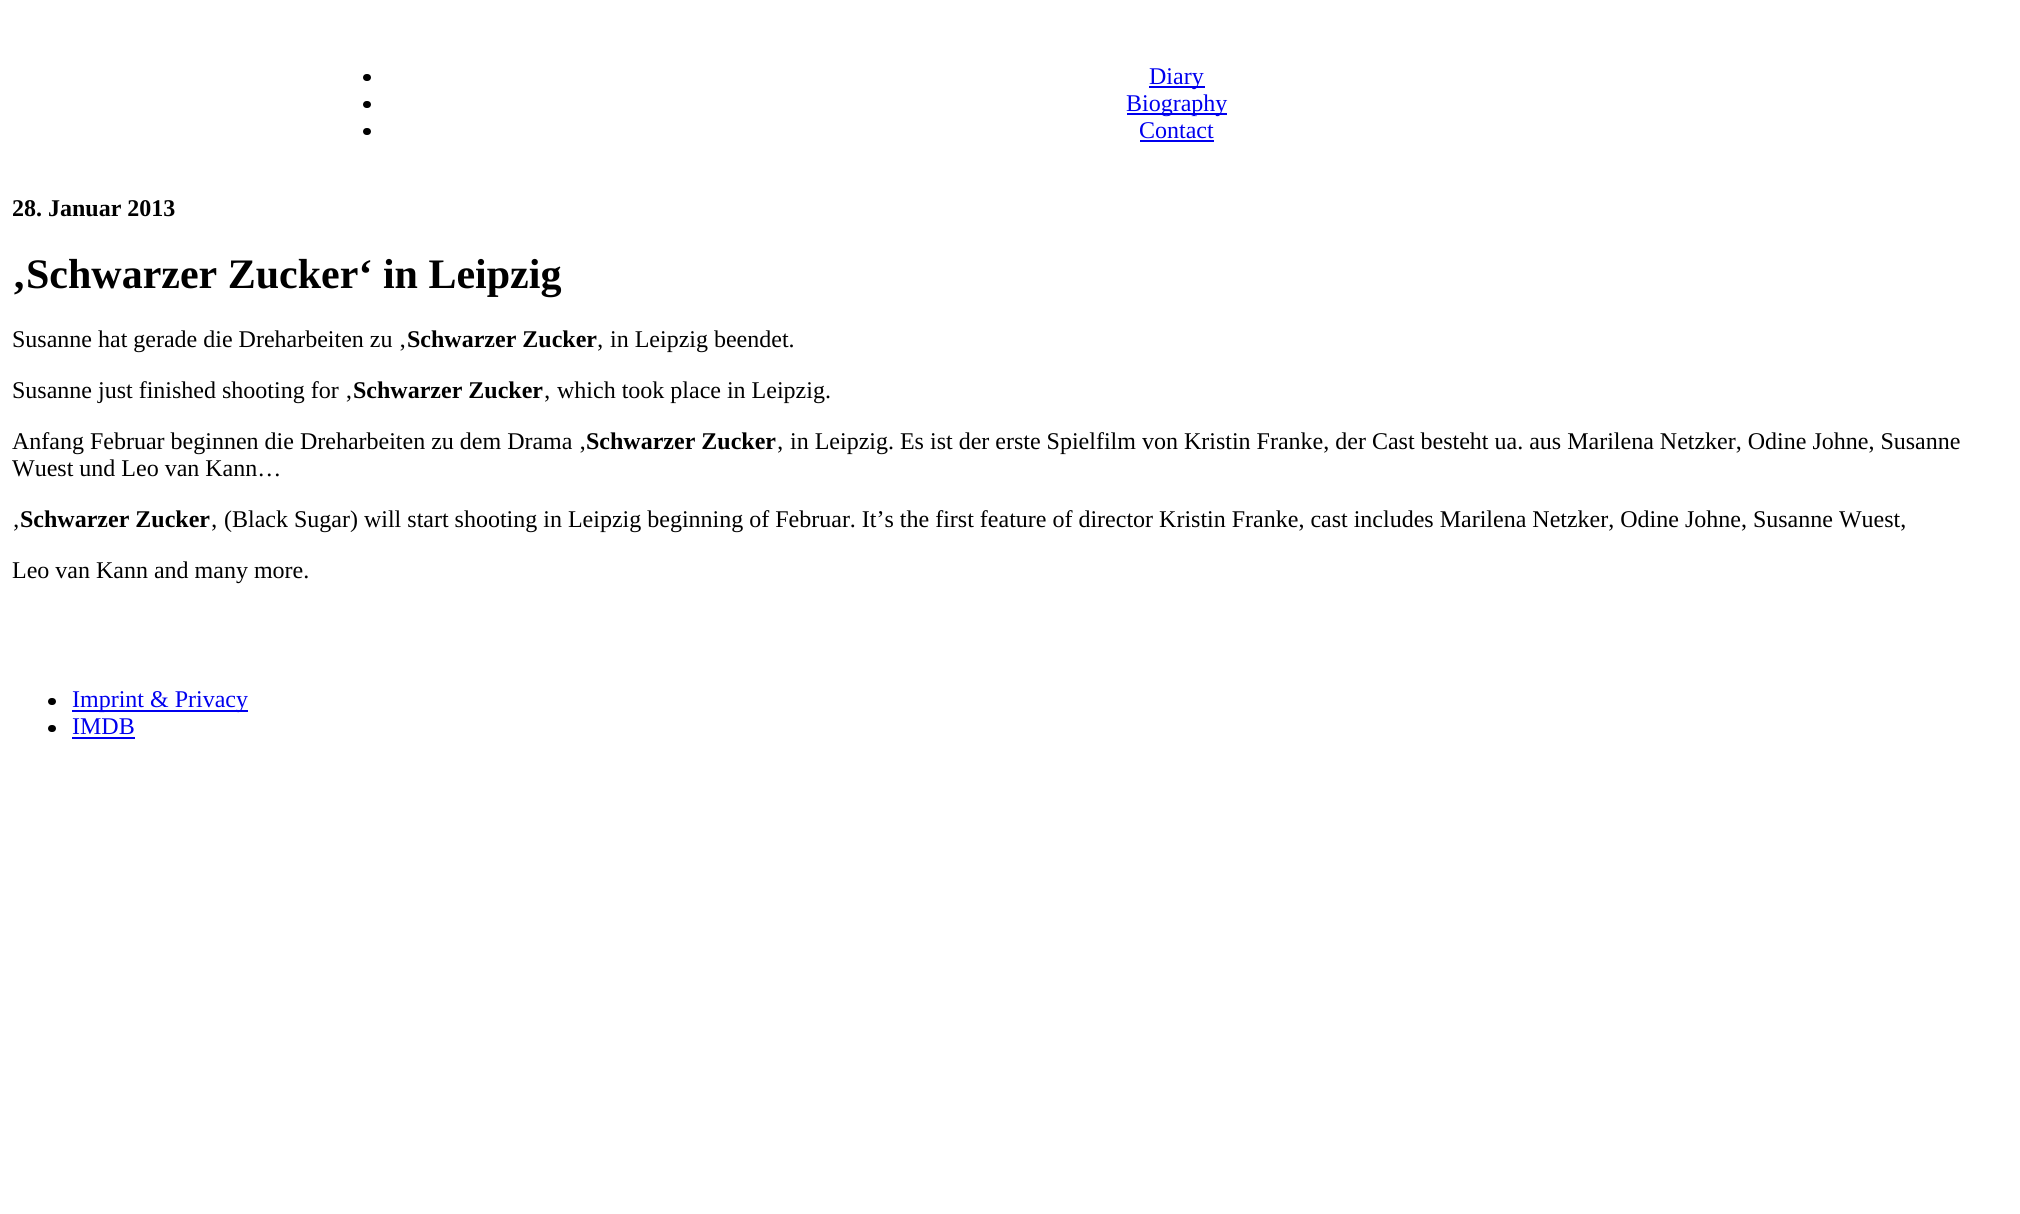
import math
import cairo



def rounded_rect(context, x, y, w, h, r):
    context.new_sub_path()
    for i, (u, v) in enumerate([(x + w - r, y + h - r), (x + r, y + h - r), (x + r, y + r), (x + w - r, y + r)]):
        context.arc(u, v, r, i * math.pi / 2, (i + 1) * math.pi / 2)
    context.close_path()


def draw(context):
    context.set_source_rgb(1, 1, 1)
    context.paint()
    context.set_source_rgb(0, 0, 0)
    rounded_rect(context, 363, 74, 8, 7, 3.5)
    context.fill()
    context.set_source_rgb(0, 0, 238 / 255)
    context.rectangle(1149, 86, 56, 2)
    context.fill()
    context.set_source_rgb(0, 0, 0)
    rounded_rect(context, 363, 101, 8, 7, 3.5)
    context.fill()
    context.set_source_rgb(0, 0, 238 / 255)
    context.rectangle(1127, 113, 100, 2)
    context.fill()
    context.set_source_rgb(0, 0, 0)
    rounded_rect(context, 363, 128, 8, 7, 3.5)
    context.fill()
    context.set_source_rgb(0, 0, 238 / 255)
    context.rectangle(1140, 140, 74, 2)
    context.fill()
    context.set_source_rgb(0, 0, 0)
    rounded_rect(context, 48, 698, 8, 7, 3.5)
    context.fill()
    context.set_source_rgb(0, 0, 238 / 255)
    context.rectangle(72, 710, 176, 2)
    context.fill()
    context.set_source_rgb(0, 0, 0)
    rounded_rect(context, 48, 725, 8, 7, 3.5)
    context.fill()
    context.set_source_rgb(0, 0, 238 / 255)
    context.rectangle(72, 737, 63, 2)
    context.fill()
    context.select_font_face("Liberation Serif")
    context.set_font_size(24)
    context.move_to(1149, 84)
    context.show_text("Diary")
    context.move_to(1126, 111)
    context.show_text("Biography")
    context.move_to(1139, 138)
    context.show_text("Contact")
    context.select_font_face("Liberation Serif", cairo.FontSlant.NORMAL, cairo.FontWeight.BOLD)
    context.set_source_rgb(0, 0, 0)
    context.move_to(12, 216)
    context.show_text("28. Januar 2013")
    context.set_font_size(42)
    context.move_to(12, 288)
    context.show_text("‚Schwarzer Zucker‘ in Leipzig")
    context.select_font_face("Liberation Serif")
    context.set_font_size(24)
    context.move_to(12, 347)
    context.show_text("Susanne hat gerade die Dreharbeiten zu ‚")
    context.select_font_face("Liberation Serif", cairo.FontSlant.NORMAL, cairo.FontWeight.BOLD)
    context.move_to(407, 347)
    context.show_text("Schwarzer Zucker")
    context.select_font_face("Liberation Serif")
    context.move_to(596, 347)
    context.show_text("‚ in Leipzig beendet.")
    context.move_to(12, 398)
    context.show_text("Susanne just finished shooting for ‚")
    context.select_font_face("Liberation Serif", cairo.FontSlant.NORMAL, cairo.FontWeight.BOLD)
    context.move_to(353, 398)
    context.show_text("Schwarzer Zucker")
    context.select_font_face("Liberation Serif")
    context.move_to(543, 398)
    context.show_text("‚ which took place in Leipzig.")
    context.move_to(12, 449)
    context.show_text("Anfang Februar beginnen die Dreharbeiten zu dem Drama ‚")
    context.select_font_face("Liberation Serif", cairo.FontSlant.NORMAL, cairo.FontWeight.BOLD)
    context.move_to(586, 449)
    context.show_text("Schwarzer Zucker")
    context.select_font_face("Liberation Serif")
    context.move_to(776, 449)
    context.show_text("‚ in Leipzig. Es ist der erste Spielfilm von Kristin Franke, der Cast besteht ua. aus Marilena Netzker, Odine Johne, Susanne")
    context.move_to(12, 476)
    context.show_text("Wuest und Leo van Kann…")
    context.move_to(12, 527)
    context.show_text("‚")
    context.select_font_face("Liberation Serif", cairo.FontSlant.NORMAL, cairo.FontWeight.BOLD)
    context.move_to(20, 527)
    context.show_text("Schwarzer Zucker")
    context.select_font_face("Liberation Serif")
    context.move_to(210, 527)
    context.show_text("‚ (Black Sugar) will start shooting in Leipzig beginning of Februar. It’s the first feature of director Kristin Franke, cast includes Marilena Netzker, Odine Johne, Susanne Wuest,")
    context.move_to(12, 578)
    context.show_text("Leo van Kann and many more.")
    context.set_source_rgb(0, 0, 238 / 255)
    context.move_to(72, 707)
    context.show_text("Imprint & Privacy")
    context.move_to(72, 734)
    context.show_text("IMDB")


surface = cairo.ImageSurface(cairo.Format.RGB24, 2020, 1214)
context = cairo.Context(surface)
options = cairo.FontOptions()
options.set_hint_metrics(cairo.HintMetrics.OFF)
options.set_hint_style(cairo.HintStyle.NONE)
context.set_font_options(options)
context.set_miter_limit(4)
draw(context)
surface.write_to_png("out.png")
